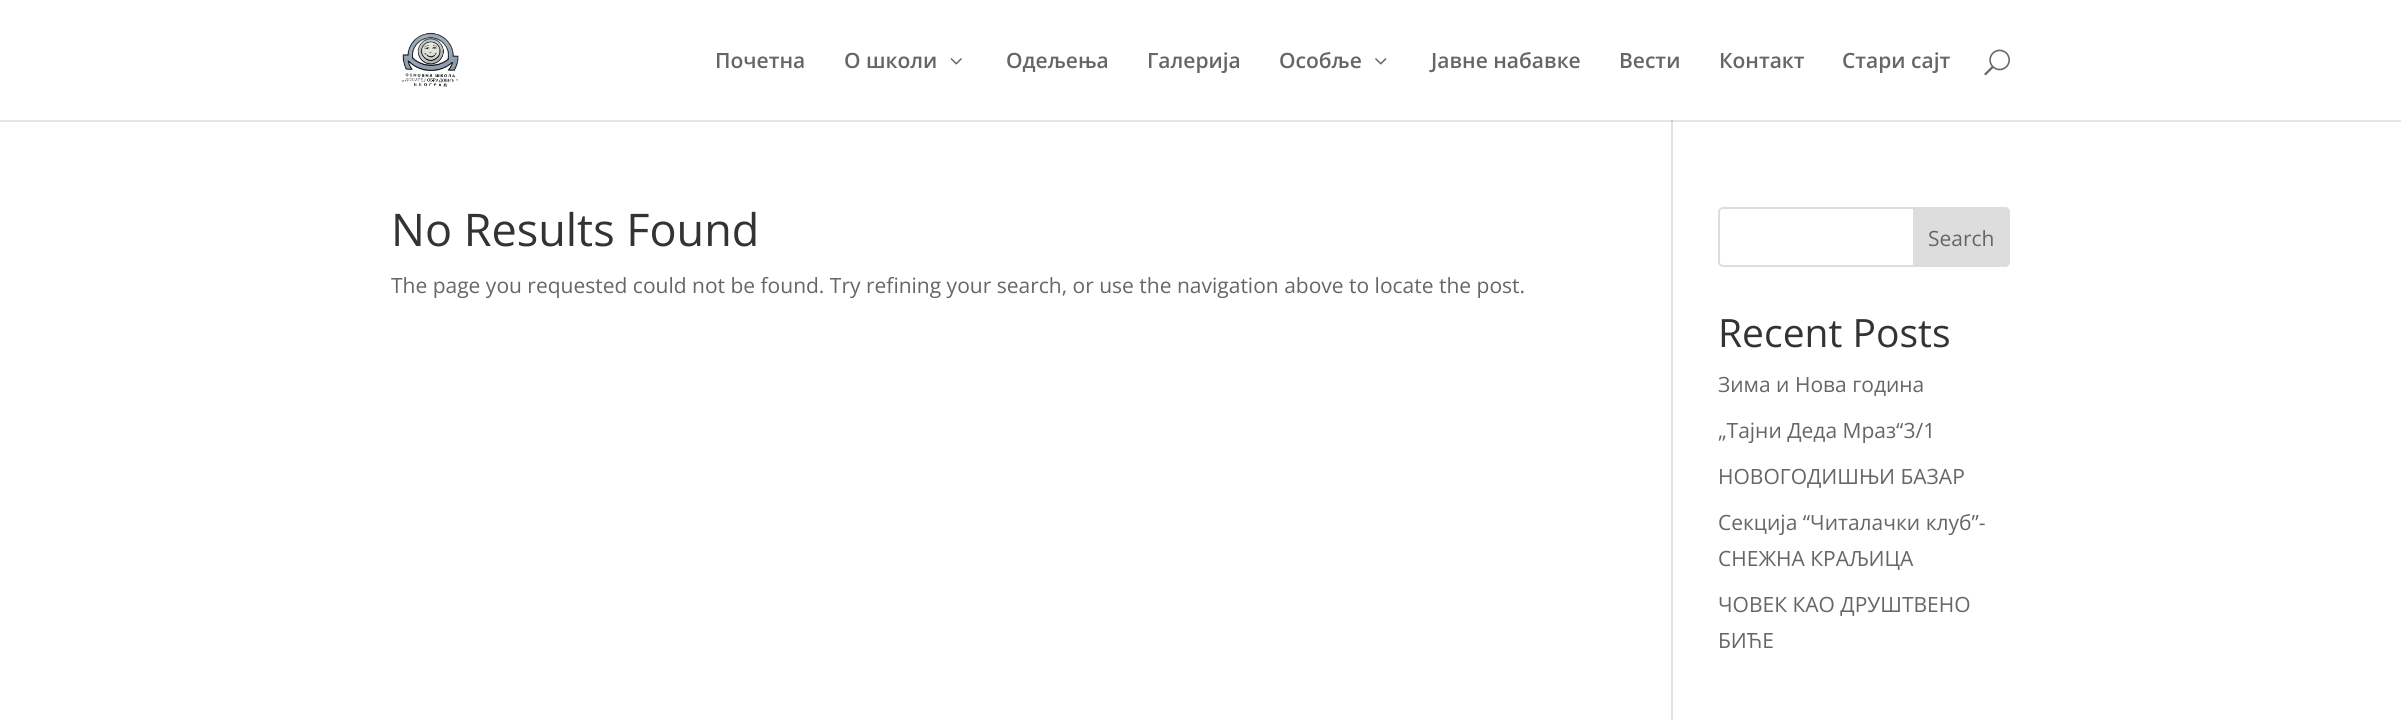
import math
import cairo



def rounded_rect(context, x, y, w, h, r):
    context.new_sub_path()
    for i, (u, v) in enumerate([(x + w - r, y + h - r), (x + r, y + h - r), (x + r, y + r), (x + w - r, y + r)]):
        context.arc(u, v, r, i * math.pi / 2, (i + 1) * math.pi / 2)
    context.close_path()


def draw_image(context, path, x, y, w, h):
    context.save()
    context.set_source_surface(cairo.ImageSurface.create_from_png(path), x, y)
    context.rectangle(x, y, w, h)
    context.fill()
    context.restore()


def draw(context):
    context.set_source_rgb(1, 1, 1)
    context.paint()
    context.set_source_rgb(226 / 255, 226 / 255, 226 / 255)
    context.rectangle(1671, 120, 2, 600)
    context.fill()
    context.set_source_rgba(0, 0, 0, 0.1)
    context.new_path()
    context.move_to(0, 120)
    context.line_to(0, 122)
    context.line_to(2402, 122)
    context.line_to(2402, 2)
    context.line_to(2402, 120)
    context.close_path()
    context.fill()
    draw_image(context, "images/1.png", 401, 32, 58, 56)
    draw_image(context, "images/2.png", 950, 58, 12, 7)
    draw_image(context, "images/3.png", 1375, 58, 12, 7)
    draw_image(context, "images/4.png", 1984, 49, 26, 27)
    rounded_rect(context, 1719, 208, 290, 58, 4)
    context.set_source_rgb(221 / 255, 221 / 255, 221 / 255)
    context.stroke()
    context.new_path()
    context.move_to(1914, 208)
    context.line_to(2005, 208)
    context.curve_to(2007, 208, 2009, 210, 2009, 212)
    context.line_to(2009, 262)
    context.curve_to(2009, 264, 2007, 266, 2005, 266)
    context.line_to(1914, 266)
    context.close_path()
    context.fill_preserve()
    context.stroke()
    context.select_font_face("Open Sans SemiBold")
    context.set_font_size(21)
    context.set_source_rgb(102 / 255, 102 / 255, 102 / 255)
    context.move_to(715, 68)
    context.show_text("Почетна")
    context.move_to(844, 68)
    context.show_text("О школи")
    context.move_to(1006, 68)
    context.show_text("Одељења")
    context.move_to(1147, 68)
    context.show_text("Галерија")
    context.move_to(1279, 68)
    context.show_text("Особље")
    context.move_to(1431, 68)
    context.show_text("Јавне набавке")
    context.move_to(1619, 68)
    context.show_text("Вести")
    context.move_to(1719, 68)
    context.show_text("Контакт")
    context.move_to(1842, 68)
    context.show_text("Стари сајт")
    context.select_font_face("Open Sans")
    context.set_font_size(45)
    context.set_source_rgb(51 / 255, 51 / 255, 51 / 255)
    context.move_to(391, 246)
    context.show_text("No Results Found")
    context.set_font_size(21)
    context.set_source_rgb(102 / 255, 102 / 255, 102 / 255)
    context.move_to(391, 293)
    context.show_text("The page you requested could not be found. Try refining your search, or use the navigation above to locate the post.")
    context.move_to(1928, 246)
    context.show_text("Search")
    context.set_font_size(39)
    context.set_source_rgb(51 / 255, 51 / 255, 51 / 255)
    context.move_to(1718, 347)
    context.show_text("Recent Posts")
    context.set_font_size(21)
    context.set_source_rgb(102 / 255, 102 / 255, 102 / 255)
    context.move_to(1718, 392)
    context.show_text("Зима и Нова година")
    context.move_to(1718, 438)
    context.show_text("„Тајни Деда Мраз“3/1")
    context.move_to(1718, 484)
    context.show_text("НОВОГОДИШЊИ БАЗАР")
    context.move_to(1718, 530)
    context.show_text("Секција “Читалачки клуб”-")
    context.move_to(1718, 566)
    context.show_text("СНЕЖНА КРАЉИЦА")
    context.move_to(1718, 612)
    context.show_text("ЧОВЕК КАО ДРУШТВЕНО")
    context.move_to(1718, 648)
    context.show_text("БИЋЕ")


surface = cairo.ImageSurface(cairo.Format.RGB24, 2401, 720)
context = cairo.Context(surface)
options = cairo.FontOptions()
options.set_hint_metrics(cairo.HintMetrics.OFF)
options.set_hint_style(cairo.HintStyle.NONE)
context.set_font_options(options)
context.set_miter_limit(4)
draw(context)
surface.write_to_png("out.png")
